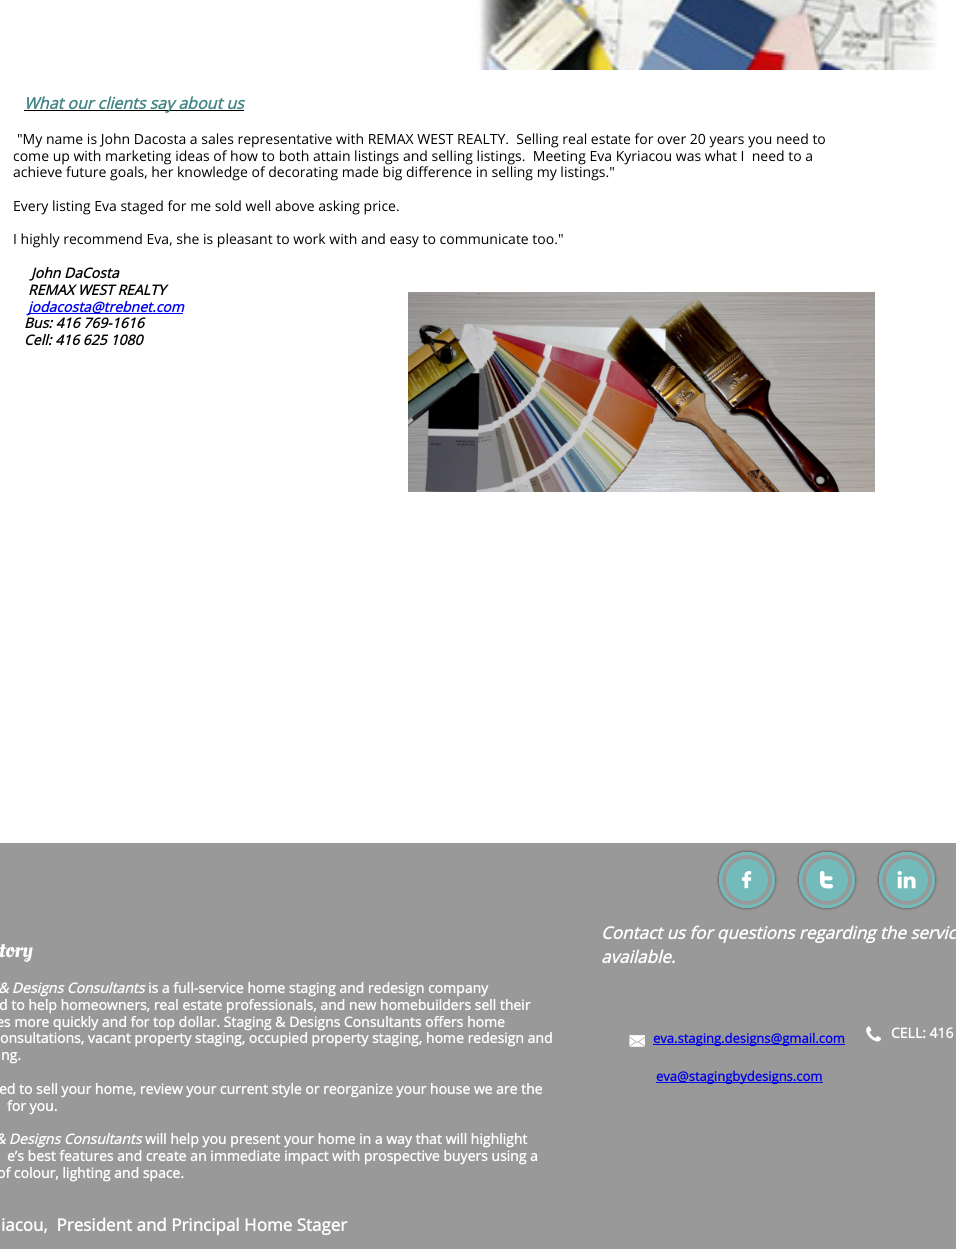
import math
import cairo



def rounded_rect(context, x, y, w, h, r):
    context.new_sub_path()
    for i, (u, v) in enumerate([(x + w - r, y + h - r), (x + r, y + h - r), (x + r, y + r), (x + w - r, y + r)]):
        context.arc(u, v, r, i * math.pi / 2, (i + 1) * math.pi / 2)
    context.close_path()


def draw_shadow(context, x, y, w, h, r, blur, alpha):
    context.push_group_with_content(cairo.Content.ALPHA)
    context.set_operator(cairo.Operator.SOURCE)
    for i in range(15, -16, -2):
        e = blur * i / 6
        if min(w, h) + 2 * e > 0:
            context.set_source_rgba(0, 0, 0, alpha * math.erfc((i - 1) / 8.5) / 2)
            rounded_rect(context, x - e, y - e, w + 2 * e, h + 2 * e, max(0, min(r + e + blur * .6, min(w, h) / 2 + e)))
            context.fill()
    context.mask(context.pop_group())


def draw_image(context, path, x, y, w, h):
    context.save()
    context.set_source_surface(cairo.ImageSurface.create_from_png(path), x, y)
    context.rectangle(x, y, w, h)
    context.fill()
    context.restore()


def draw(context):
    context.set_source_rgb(1, 1, 1)
    context.paint()
    draw_image(context, "images/1.png", 475, 0, 463, 70)
    context.set_source_rgb(0, 0, 0)
    context.rectangle(24, 110, 220, 1)
    context.fill()
    context.set_source_rgb(0, 0, 238 / 255)
    context.rectangle(28, 313, 155, 1)
    context.fill()
    draw_image(context, "images/2.png", 408, 292, 467, 200)
    context.set_source_rgb(153 / 255, 153 / 255, 153 / 255)
    context.rectangle(0, 843, 956, 406)
    context.fill()
    context.set_source_rgb(115 / 255, 186 / 255, 186 / 255)
    context.arc(747, 880, 21, 0, 2 * math.pi)
    context.fill()
    context.save()
    context.set_fill_rule(cairo.FillRule.EVEN_ODD)
    context.new_path()
    context.move_to(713, 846)
    context.line_to(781, 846)
    context.line_to(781, 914)
    context.line_to(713, 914)
    context.close_path()
    context.move_to(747, 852)
    context.curve_to(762.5, 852, 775, 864.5, 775, 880)
    context.curve_to(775, 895.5, 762.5, 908, 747, 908)
    context.curve_to(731.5, 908, 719, 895.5, 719, 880)
    context.curve_to(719, 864.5, 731.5, 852, 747, 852)
    context.close_path()
    context.clip()
    context.set_source_rgb(0, 0, 0)
    draw_shadow(context, 719, 852, 56, 56, 28, 1.5, 0.64)
    context.restore()
    context.arc(747, 880, 26.5, 0, 2 * math.pi)
    context.set_line_width(3)
    context.stroke()
    draw_image(context, "images/3.png", 741, 871, 11, 18)
    context.arc(827, 880, 21, 0, 2 * math.pi)
    context.fill()
    context.save()
    context.set_fill_rule(cairo.FillRule.EVEN_ODD)
    context.new_path()
    context.move_to(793, 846)
    context.line_to(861, 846)
    context.line_to(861, 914)
    context.line_to(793, 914)
    context.close_path()
    context.move_to(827, 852)
    context.curve_to(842.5, 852, 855, 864.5, 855, 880)
    context.curve_to(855, 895.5, 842.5, 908, 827, 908)
    context.curve_to(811.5, 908, 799, 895.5, 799, 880)
    context.curve_to(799, 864.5, 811.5, 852, 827, 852)
    context.close_path()
    context.clip()
    context.set_source_rgb(0, 0, 0)
    draw_shadow(context, 799, 852, 56, 56, 28, 1.5, 0.64)
    context.restore()
    context.arc(827, 880, 26.5, 0, 2 * math.pi)
    context.stroke()
    draw_image(context, "images/4.png", 820, 870, 13, 19)
    context.arc(907, 880, 21, 0, 2 * math.pi)
    context.fill()
    context.save()
    context.set_fill_rule(cairo.FillRule.EVEN_ODD)
    context.new_path()
    context.move_to(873, 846)
    context.line_to(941, 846)
    context.line_to(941, 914)
    context.line_to(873, 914)
    context.close_path()
    context.move_to(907, 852)
    context.curve_to(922.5, 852, 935, 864.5, 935, 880)
    context.curve_to(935, 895.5, 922.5, 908, 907, 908)
    context.curve_to(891.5, 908, 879, 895.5, 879, 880)
    context.curve_to(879, 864.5, 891.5, 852, 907, 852)
    context.close_path()
    context.clip()
    context.set_source_rgb(0, 0, 0)
    draw_shadow(context, 879, 852, 56, 56, 28, 1.5, 0.64)
    context.restore()
    context.arc(907, 880, 26.5, 0, 2 * math.pi)
    context.stroke()
    draw_image(context, "images/5.png", 897, 871, 19, 18)
    draw_image(context, "images/6.png", 629, 1035, 16, 12)
    context.set_source_rgb(0, 0, 238 / 255)
    context.rectangle(653, 1044, 192, 1)
    context.fill()
    context.rectangle(656, 1082, 167, 1)
    context.fill()
    draw_image(context, "images/7.png", 866, 1026, 15, 16)
    context.select_font_face("Open Sans", cairo.FontSlant.ITALIC, cairo.FontWeight.BOLD)
    context.set_font_size(16)
    context.set_source_rgb(66 / 255, 133 / 255, 133 / 255)
    context.move_to(24, 109)
    context.show_text("What our clients say about us")
    context.select_font_face("Open Sans")
    context.set_font_size(14)
    context.set_source_rgb(0, 0, 0)
    context.move_to(17, 144)
    context.show_text("\"My name is John Dacosta a sales representative with REMAX WEST REALTY.  Selling real estate for over 20 years you need to")
    context.move_to(13, 161)
    context.show_text("come up with marketing ideas of how to both attain listings and selling listings.  Meeting Eva Kyriacou was what I  need to a")
    context.move_to(13, 177)
    context.show_text("achieve future goals, her knowledge of decorating made big difference in selling my listings.\"")
    context.move_to(13, 211)
    context.show_text("Every listing Eva staged for me sold well above asking price.")
    context.move_to(13, 244)
    context.show_text("I highly recommend Eva, she is pleasant to work with and easy to communicate too.\"")
    context.select_font_face("Open Sans", cairo.FontSlant.ITALIC, cairo.FontWeight.BOLD)
    context.move_to(31, 278)
    context.show_text("John DaCosta")
    context.move_to(28, 295)
    context.show_text("REMAX WEST REALTY")
    context.set_source_rgb(0, 0, 238 / 255)
    context.move_to(28, 312)
    context.show_text("jodacosta@trebnet.com")
    context.set_source_rgb(0, 0, 0)
    context.move_to(24, 328)
    context.show_text("Bus: 416 769-1616")
    context.move_to(24, 345)
    context.show_text("Cell: 416 625 1080")
    context.select_font_face("Oleo Script")
    context.set_font_size(22)
    context.set_source_rgb(1, 1, 1)
    context.move_to(-1, 957)
    context.show_text("tory")
    context.select_font_face("Open Sans", cairo.FontSlant.ITALIC, cairo.FontWeight.BOLD)
    context.set_font_size(14)
    context.move_to(-2, 993)
    context.show_text("& Designs Consultants")
    context.select_font_face("Open Sans", cairo.FontSlant.NORMAL, cairo.FontWeight.BOLD)
    context.move_to(148, 993)
    context.show_text("is a full-service home staging and redesign company")
    context.move_to(-1, 1010)
    context.show_text("d to help homeowners, real estate professionals, and new homebuilders sell their")
    context.move_to(-4, 1027)
    context.show_text("es more quickly and for top dollar. Staging & Designs Consultants offers home")
    context.move_to(0, 1043)
    context.show_text("onsultations, vacant property staging, occupied property staging, home redesign and")
    context.move_to(1, 1060)
    context.show_text("ng.")
    context.move_to(-1, 1094)
    context.show_text("ed to sell your home, review your current style or reorganize your house we are the")
    context.move_to(7, 1111)
    context.show_text("for you.")
    context.select_font_face("Open Sans", cairo.FontSlant.ITALIC, cairo.FontWeight.BOLD)
    context.move_to(-5, 1144)
    context.show_text("& Designs Consultants")
    context.select_font_face("Open Sans", cairo.FontSlant.NORMAL, cairo.FontWeight.BOLD)
    context.move_to(145, 1144)
    context.show_text("will help you present your home in a way that will highlight")
    context.move_to(7, 1161)
    context.show_text("e’s best features and create an immediate impact with prospective buyers using a")
    context.move_to(-3, 1178)
    context.show_text("of colour, lighting and space.")
    context.set_font_size(17)
    context.move_to(1, 1231)
    context.show_text("iacou,  President and Principal Home Stager")
    context.select_font_face("Open Sans", cairo.FontSlant.ITALIC, cairo.FontWeight.BOLD)
    context.move_to(601, 939)
    context.show_text("Contact us for questions regarding the servic")
    context.move_to(601, 963)
    context.show_text("available.")
    context.select_font_face("Open Sans", cairo.FontSlant.NORMAL, cairo.FontWeight.BOLD)
    context.set_font_size(13)
    context.set_source_rgb(0, 0, 238 / 255)
    context.move_to(653, 1043)
    context.show_text("eva.staging.designs@gmail.com")
    context.move_to(656, 1081)
    context.show_text("eva@stagingbydesigns.com")
    context.set_font_size(14)
    context.set_source_rgb(1, 1, 1)
    context.move_to(891, 1038)
    context.show_text("CELL: 416")


surface = cairo.ImageSurface(cairo.Format.RGB24, 956, 1249)
context = cairo.Context(surface)
options = cairo.FontOptions()
options.set_hint_metrics(cairo.HintMetrics.OFF)
options.set_hint_style(cairo.HintStyle.NONE)
context.set_font_options(options)
context.set_miter_limit(4)
draw(context)
surface.write_to_png("out.png")
